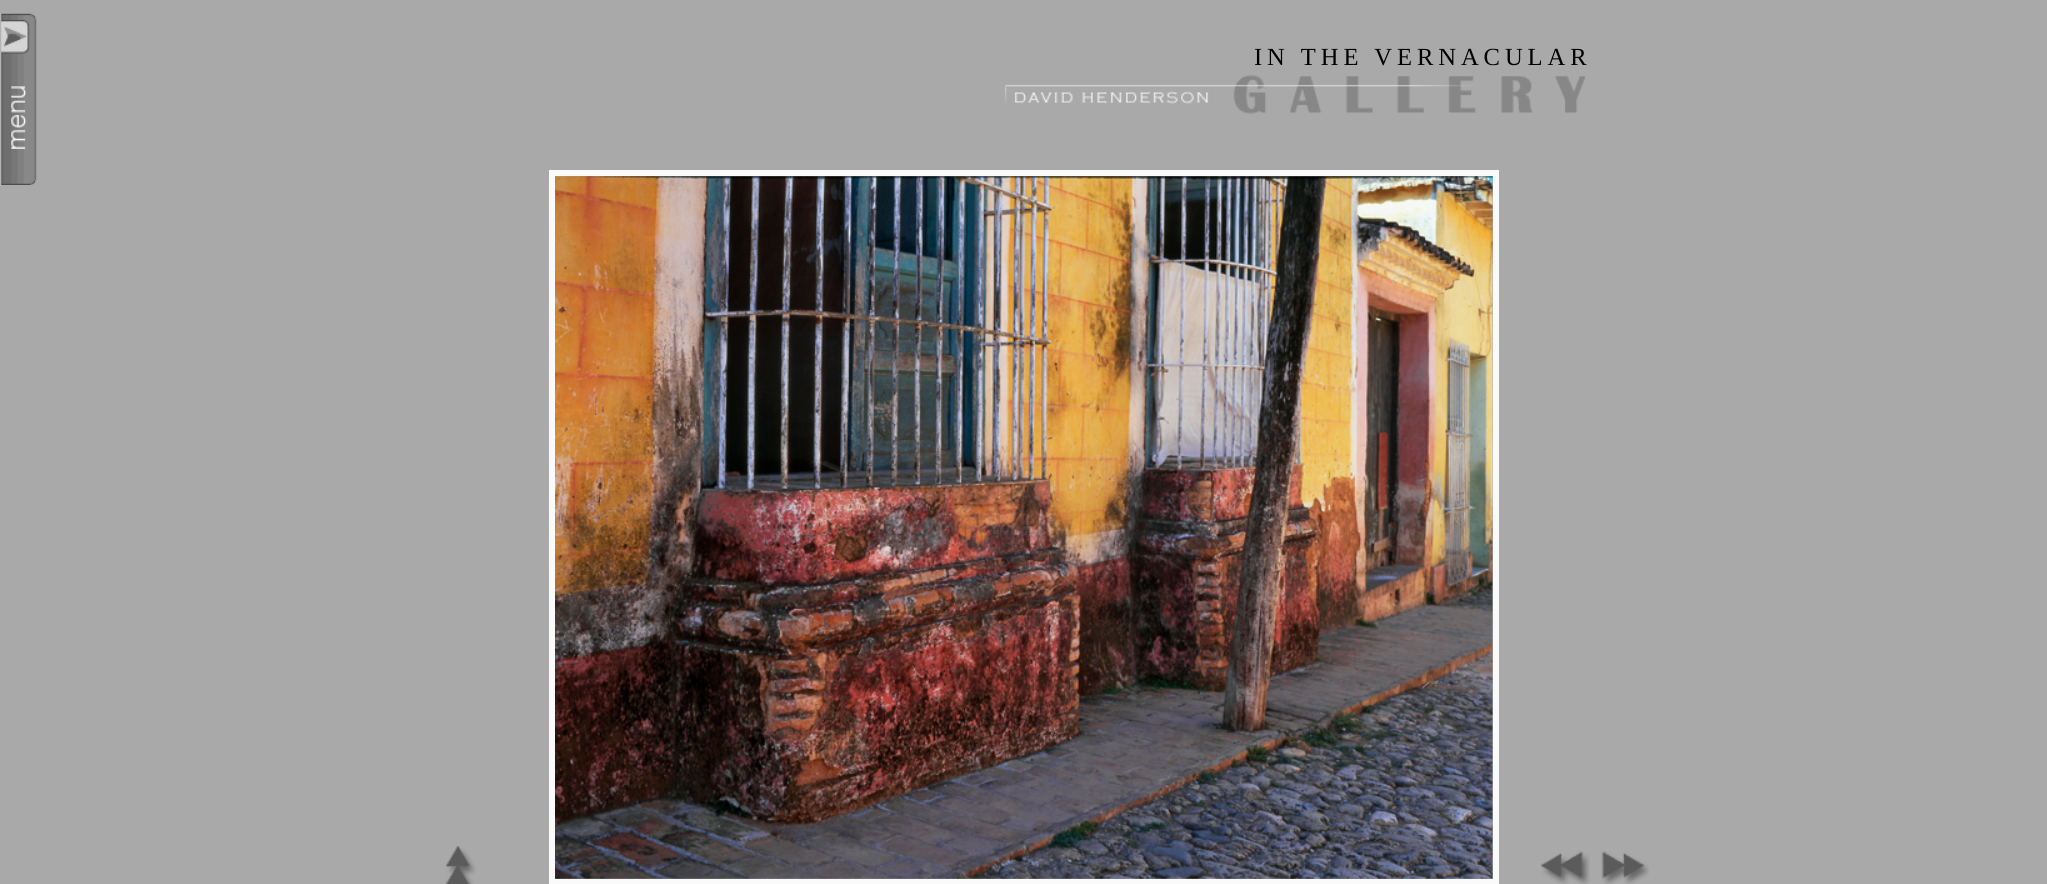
import math
import cairo



def draw_spaced(context, x, y, s, letter, word):
    context.move_to(x, y)
    for ch in s:
        context.show_text(ch)
        context.rel_move_to(letter + word * (ch == ' '), 0)


def draw_image(context, path, x, y, w, h):
    context.save()
    context.set_source_surface(cairo.ImageSurface.create_from_png(path), x, y)
    context.rectangle(x, y, w, h)
    context.fill()
    context.restore()


def draw(context):
    context.set_source_rgb(169 / 255, 169 / 255, 169 / 255)
    context.paint()
    context.set_source_rgb(179 / 255, 179 / 255, 179 / 255)
    context.new_path()
    context.move_to(0, 13)
    context.line_to(3, 13)
    context.line_to(3, 183.5)
    context.curve_to(3, 185, 2, 186, 0.5, 186)
    context.line_to(0, 186)
    context.close_path()
    context.fill()
    draw_image(context, "images/1.png", 1, 13, 36, 172)
    draw_image(context, "images/2.png", 1005, 75, 581, 39)
    draw_image(context, "images/3.png", 445, 846, 31, 38)
    context.rectangle(552, 173, 944, 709)
    context.set_source_rgb(250 / 255, 250 / 255, 250 / 255)
    context.set_line_width(6)
    context.stroke()
    draw_image(context, "images/4.png", 555, 176, 938, 703)
    draw_image(context, "images/5.png", 1541, 851, 49, 33)
    draw_image(context, "images/6.png", 1601, 851, 48, 33)
    context.select_font_face("Liberation Serif")
    context.set_font_size(24.6)
    context.set_source_rgb(0, 0, 0)
    draw_spaced(context, 1254, 65, "IN THE VERNACULAR", 4.9, 0)


surface = cairo.ImageSurface(cairo.Format.RGB24, 2047, 884)
context = cairo.Context(surface)
options = cairo.FontOptions()
options.set_hint_metrics(cairo.HintMetrics.OFF)
options.set_hint_style(cairo.HintStyle.NONE)
context.set_font_options(options)
context.set_miter_limit(4)
draw(context)
surface.write_to_png("out.png")
